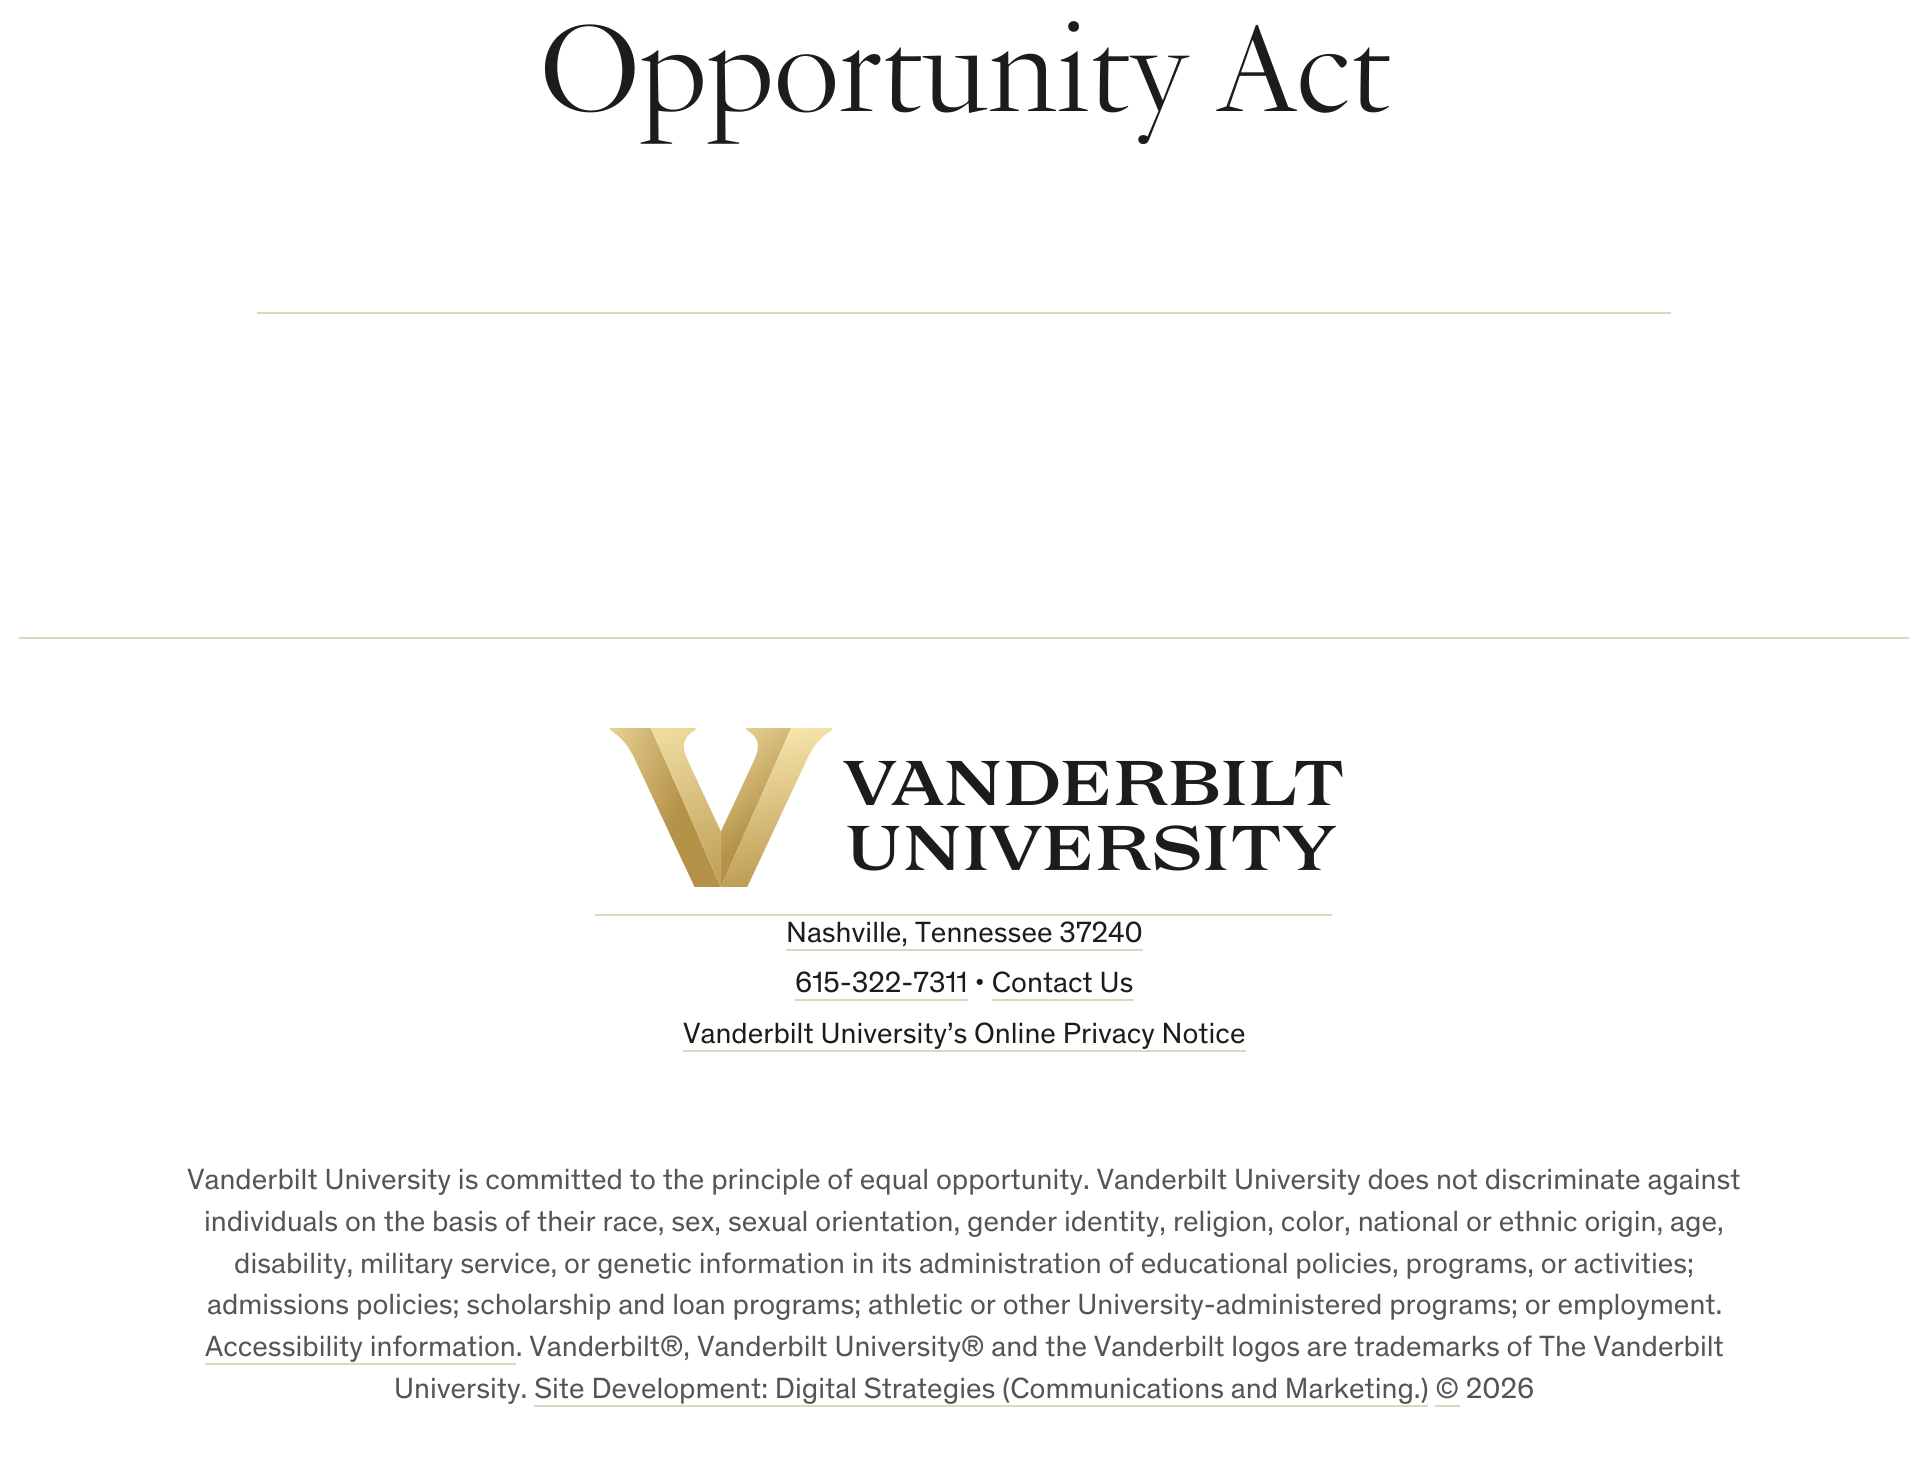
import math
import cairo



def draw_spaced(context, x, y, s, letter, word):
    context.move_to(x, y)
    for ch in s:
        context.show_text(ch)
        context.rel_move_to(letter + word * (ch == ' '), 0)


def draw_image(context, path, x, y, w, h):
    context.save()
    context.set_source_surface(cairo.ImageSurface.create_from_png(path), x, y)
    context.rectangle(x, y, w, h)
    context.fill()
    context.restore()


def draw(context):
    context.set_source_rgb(1, 1, 1)
    context.paint()
    context.set_source_rgb(224 / 255, 213 / 255, 192 / 255)
    context.rectangle(257, 312, 1414, 2)
    context.fill()
    context.rectangle(19, 637, 1890, 2)
    context.fill()
    context.rectangle(595, 914, 737, 2)
    context.fill()
    draw_image(context, "images/1.png", 609, 728, 734, 159)
    context.rectangle(786, 949, 357, 2)
    context.fill()
    context.rectangle(795, 999, 173, 2)
    context.fill()
    context.rectangle(992, 999, 142, 2)
    context.fill()
    context.rectangle(683, 1050, 563, 2)
    context.fill()
    context.rectangle(205, 1363, 311, 2)
    context.fill()
    context.rectangle(534, 1405, 894, 2)
    context.fill()
    context.rectangle(1435, 1405, 25, 2)
    context.fill()
    context.select_font_face("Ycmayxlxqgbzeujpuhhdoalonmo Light")
    context.set_font_size(126)
    context.set_source_rgb(28 / 255, 28 / 255, 28 / 255)
    draw_spaced(context, 539, 111, "Opportunity Act", -1.9, 0)
    context.select_font_face("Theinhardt")
    context.set_font_size(29.75)
    context.move_to(786, 942)
    context.show_text("Nashville, Tennessee 37240")
    context.move_to(795, 992)
    context.show_text("615-322-7311 • Contact Us")
    context.move_to(683, 1043)
    context.show_text("Vanderbilt University’s Online Privacy Notice")
    context.set_source_rgb(85 / 255, 85 / 255, 85 / 255)
    context.move_to(187, 1189)
    context.show_text("Vanderbilt University is committed to the principle of equal opportunity. Vanderbilt University does not discriminate against")
    context.move_to(204, 1231)
    context.show_text("individuals on the basis of their race, sex, sexual orientation, gender identity, religion, color, national or ethnic origin, age,")
    context.move_to(234, 1273)
    context.show_text("disability, military service, or genetic information in its administration of educational policies, programs, or activities;")
    context.move_to(207, 1314)
    context.show_text("admissions policies; scholarship and loan programs; athletic or other University-administered programs; or employment.")
    context.move_to(205, 1356)
    context.show_text("Accessibility information. Vanderbilt®, Vanderbilt University® and the Vanderbilt logos are trademarks of The Vanderbilt")
    context.move_to(394, 1398)
    context.show_text("University. Site Development: Digital Strategies (Communications and Marketing.) © 2026")


surface = cairo.ImageSurface(cairo.Format.RGB24, 1928, 1474)
context = cairo.Context(surface)
options = cairo.FontOptions()
options.set_hint_metrics(cairo.HintMetrics.OFF)
options.set_hint_style(cairo.HintStyle.NONE)
context.set_font_options(options)
context.set_miter_limit(4)
draw(context)
surface.write_to_png("out.png")
